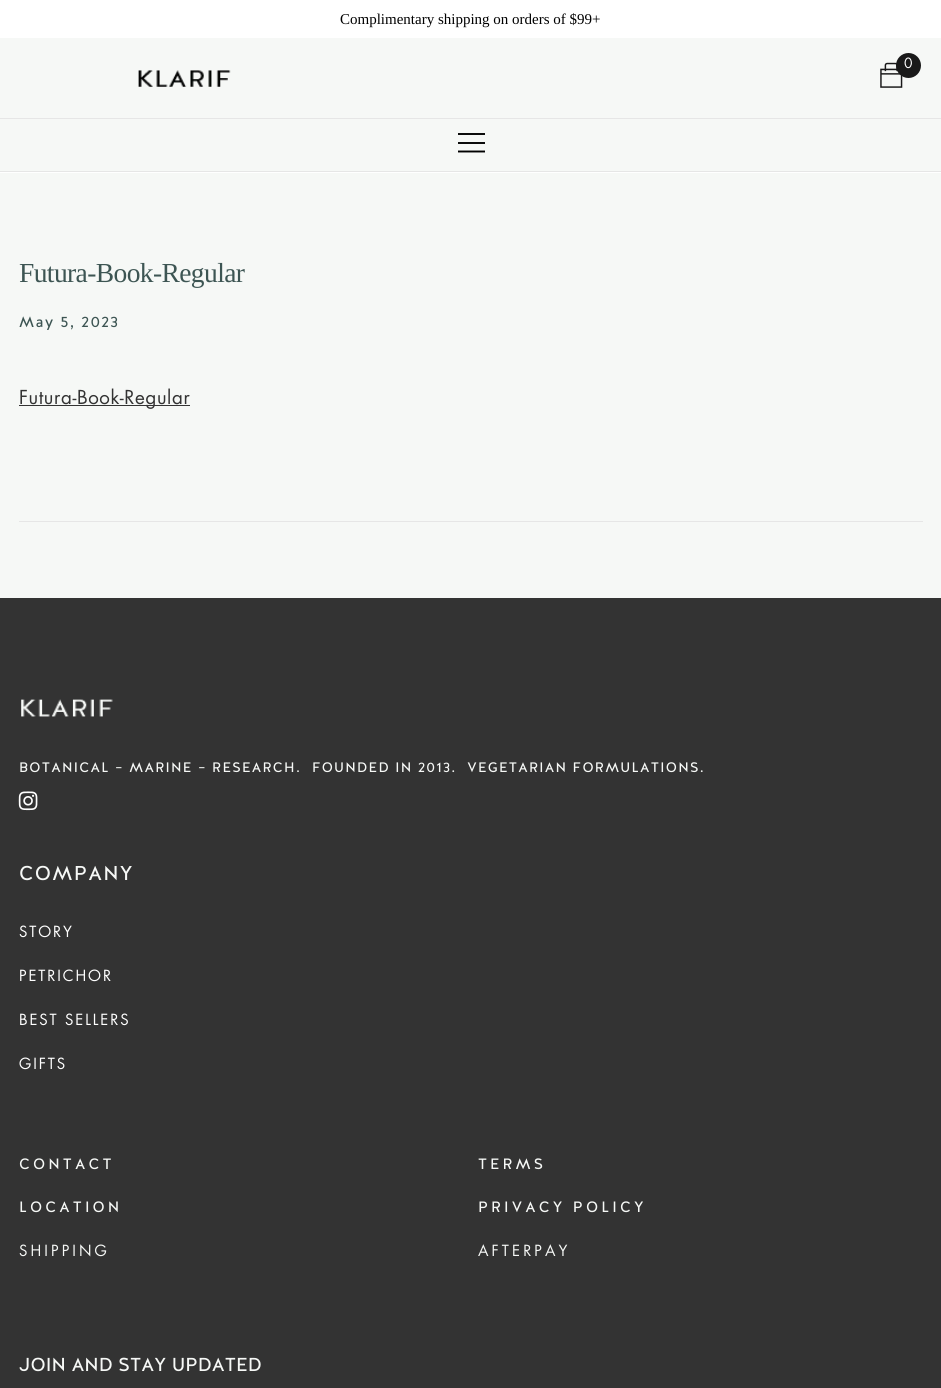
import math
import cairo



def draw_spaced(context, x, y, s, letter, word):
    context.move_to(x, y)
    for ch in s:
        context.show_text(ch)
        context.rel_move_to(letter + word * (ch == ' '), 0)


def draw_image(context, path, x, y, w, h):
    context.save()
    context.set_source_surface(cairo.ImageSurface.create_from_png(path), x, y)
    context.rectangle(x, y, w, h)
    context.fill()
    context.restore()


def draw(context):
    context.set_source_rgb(1, 1, 1)
    context.paint()
    context.set_source_rgb(246 / 255, 248 / 255, 246 / 255)
    context.rectangle(0, 38, 941, 80)
    context.fill()
    context.set_source_rgb(230 / 255, 230 / 255, 230 / 255)
    context.rectangle(0, 118, 941, 1)
    context.fill()
    draw_image(context, "images/1.png", 880, 62, 23, 26)
    context.set_source_rgb(25 / 255, 25 / 255, 25 / 255)
    context.arc(908.5, 65.5, 12.5, 0, 2 * math.pi)
    context.fill()
    draw_image(context, "images/2.png", 138, 70, 93, 17)
    context.set_source_rgb(246 / 255, 248 / 255, 246 / 255)
    context.rectangle(0, 119, 941, 52)
    context.fill()
    context.set_source_rgb(230 / 255, 230 / 255, 230 / 255)
    context.rectangle(0, 171, 941, 1)
    context.fill()
    context.set_source_rgb(12 / 255, 12 / 255, 12 / 255)
    context.rectangle(458, 133, 27, 2)
    context.fill()
    context.rectangle(458, 142, 27, 2)
    context.fill()
    context.save()
    context.rectangle(458, 131, 27, 23)
    context.clip()
    context.new_path()
    context.move_to(457.5, 151.5)
    context.line_to(485, 151.5)
    context.set_source_rgb(0, 0, 0)
    context.set_line_width(1.9)
    context.stroke()
    context.restore()
    context.set_source_rgb(246 / 255, 248 / 255, 246 / 255)
    context.rectangle(0, 173, 941, 425)
    context.fill()
    context.set_source_rgb(51 / 255, 51 / 255, 51 / 255)
    context.rectangle(19, 405, 171, 1)
    context.fill()
    context.set_source_rgb(230 / 255, 230 / 255, 230 / 255)
    context.rectangle(19, 521, 904, 1)
    context.fill()
    context.set_source_rgb(51 / 255, 51 / 255, 51 / 255)
    context.rectangle(0, 598, 941, 790)
    context.fill()
    draw_image(context, "images/3.png", 21, 699, 92, 18)
    draw_image(context, "images/4.png", 18, 791, 20, 20)
    context.select_font_face("Liberation Serif")
    context.set_font_size(15)
    context.set_source_rgb(0, 0, 0)
    context.move_to(340, 24)
    context.show_text("Complimentary shipping on orders of $99+")
    context.select_font_face("Futura")
    context.set_font_size(13.75)
    context.set_source_rgb(1, 1, 1)
    draw_spaced(context, 904, 68, "0", 0.6, 0)
    context.select_font_face("Liberation Serif")
    context.set_font_size(27.5)
    context.set_source_rgb(61 / 255, 85 / 255, 83 / 255)
    draw_spaced(context, 19, 282, "Futura-Book-Regular", -0.6, 0)
    context.select_font_face("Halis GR")
    context.set_font_size(15)
    draw_spaced(context, 19, 327, "May 5, 2023", 1.25, 0)
    context.select_font_face("Futura")
    context.set_font_size(18.75)
    context.set_source_rgb(51 / 255, 51 / 255, 51 / 255)
    draw_spaced(context, 19, 404, "Futura-Book-Regular", 0.6, 0)
    context.select_font_face("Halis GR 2")
    context.set_font_size(13.75)
    context.set_source_rgb(246 / 255, 248 / 255, 246 / 255)
    draw_spaced(context, 19, 772, "BOTANICAL – MARINE – RESEARCH.  FOUNDED IN 2013.  VEGETARIAN FORMULATIONS.", 1.25, 0)
    context.select_font_face("Halis GR")
    context.set_font_size(20)
    draw_spaced(context, 19, 880, "COMPANY", 1.25, 0)
    context.select_font_face("Futura")
    context.set_font_size(15)
    context.set_source_rgb(1, 1, 1)
    draw_spaced(context, 19, 937, "STORY", 1.9, 0)
    draw_spaced(context, 19, 981, "PETRICHOR", 1.9, 0)
    draw_spaced(context, 19, 1025, "BEST SELLERS", 1.9, 0)
    draw_spaced(context, 19, 1069, "GIFTS", 1.9, 0)
    context.select_font_face("Halis GR 2")
    context.set_source_rgb(246 / 255, 248 / 255, 246 / 255)
    draw_spaced(context, 19, 1169, "CONTACT", 3.1, 0)
    draw_spaced(context, 478, 1169, "TERMS", 3.1, 0)
    draw_spaced(context, 19, 1212, "LOCATION", 3.1, 0)
    draw_spaced(context, 478, 1212, "PRIVACY POLICY", 3.1, 0)
    context.select_font_face("Futura")
    draw_spaced(context, 19, 1256, "SHIPPING", 3.1, 0)
    draw_spaced(context, 478, 1256, "AFTERPAY", 3.1, 0)
    context.select_font_face("Halis GR 2")
    context.set_font_size(18.75)
    context.move_to(19, 1371)
    context.show_text("JOIN AND STAY UPDATED")


surface = cairo.ImageSurface(cairo.Format.RGB24, 941, 1388)
context = cairo.Context(surface)
options = cairo.FontOptions()
options.set_hint_metrics(cairo.HintMetrics.OFF)
options.set_hint_style(cairo.HintStyle.NONE)
context.set_font_options(options)
context.set_miter_limit(4)
draw(context)
surface.write_to_png("out.png")
